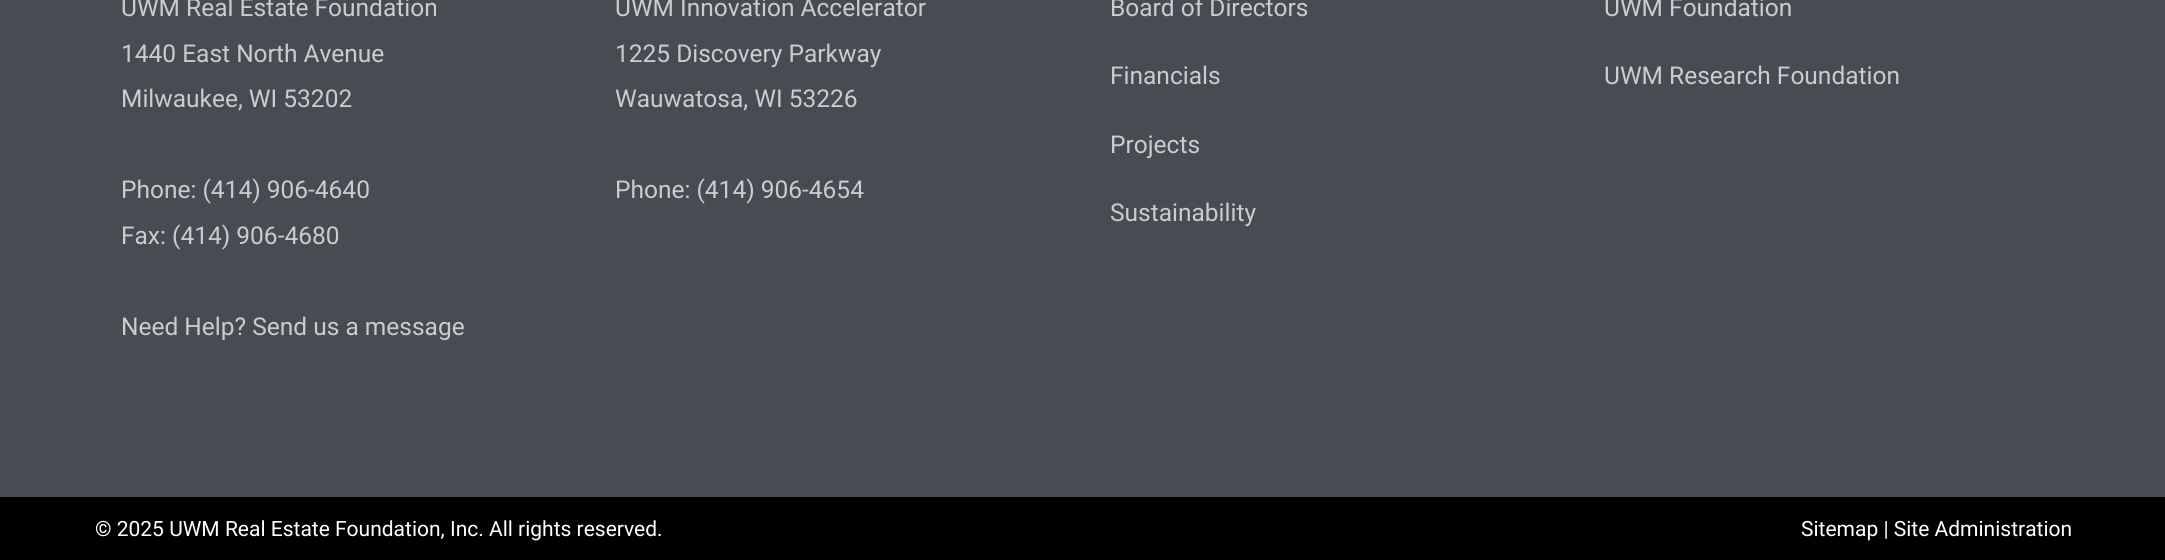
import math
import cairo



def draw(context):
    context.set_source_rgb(0, 0, 0)
    context.paint()
    context.set_source_rgb(71 / 255, 75 / 255, 82 / 255)
    context.rectangle(0, 0, 2165, 497)
    context.fill()
    context.select_font_face("Roboto")
    context.set_font_size(24.5)
    context.set_source_rgb(204 / 255, 204 / 255, 204 / 255)
    context.move_to(121, 16)
    context.show_text("UWM Real Estate Foundation")
    context.move_to(121, 62)
    context.show_text("1440 East North Avenue")
    context.move_to(121, 107)
    context.show_text("Milwaukee, WI 53202")
    context.move_to(121, 198)
    context.show_text("Phone: (414) 906-4640")
    context.move_to(121, 244)
    context.show_text("Fax: (414) 906-4680")
    context.move_to(121, 335)
    context.show_text("Need Help? Send us a message")
    context.move_to(615, 16)
    context.show_text("UWM Innovation Accelerator")
    context.move_to(615, 62)
    context.show_text("1225 Discovery Parkway")
    context.move_to(615, 107)
    context.show_text("Wauwatosa, WI 53226")
    context.move_to(615, 198)
    context.show_text("Phone: (414) 906-4654")
    context.move_to(1110, 16)
    context.show_text("Board of Directors")
    context.move_to(1110, 84)
    context.show_text("Financials")
    context.move_to(1110, 153)
    context.show_text("Projects")
    context.move_to(1110, 221)
    context.show_text("Sustainability")
    context.move_to(1604, 16)
    context.show_text("UWM Foundation")
    context.move_to(1604, 84)
    context.show_text("UWM Research Foundation")
    context.set_font_size(21)
    context.set_source_rgb(1, 1, 1)
    context.move_to(95, 536)
    context.show_text("© 2025 UWM Real Estate Foundation, Inc. All rights reserved.")
    context.move_to(1801, 536)
    context.show_text("Sitemap | Site Administration")


surface = cairo.ImageSurface(cairo.Format.RGB24, 2165, 560)
context = cairo.Context(surface)
options = cairo.FontOptions()
options.set_hint_metrics(cairo.HintMetrics.OFF)
options.set_hint_style(cairo.HintStyle.NONE)
context.set_font_options(options)
context.set_miter_limit(4)
draw(context)
surface.write_to_png("out.png")
